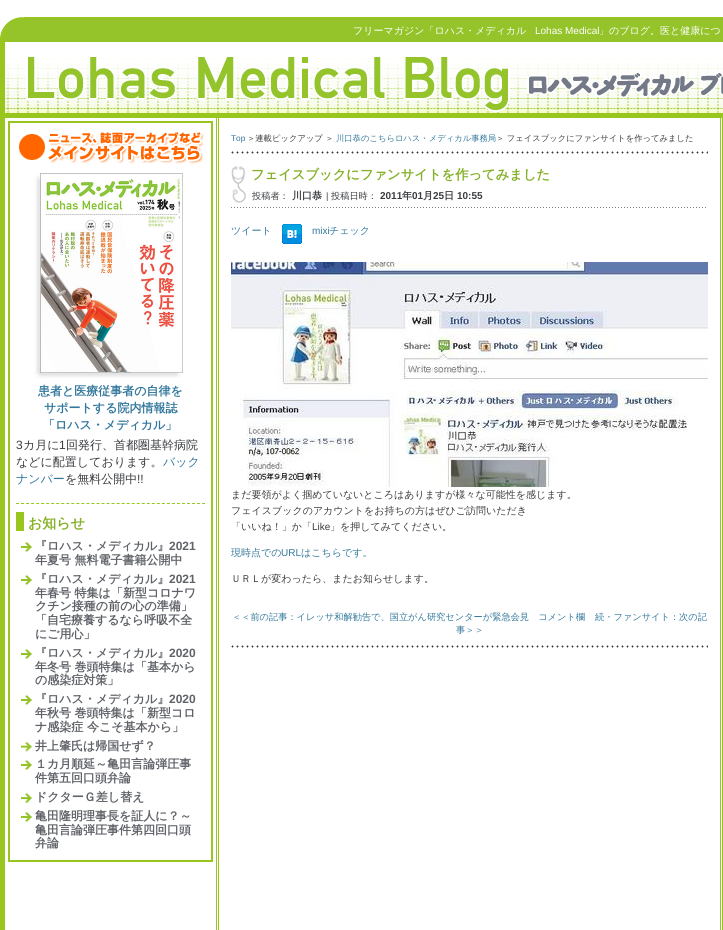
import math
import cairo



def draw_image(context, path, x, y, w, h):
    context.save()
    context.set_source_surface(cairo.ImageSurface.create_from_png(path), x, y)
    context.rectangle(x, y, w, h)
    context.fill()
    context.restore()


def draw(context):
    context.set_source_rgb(1, 1, 1)
    context.paint()
    draw_image(context, "images/1.png", 1, 0, 722, 17)
    draw_image(context, "images/2.png", 0, 42, 5, 71)
    draw_image(context, "images/3.png", 0, 17, 723, 25)
    draw_image(context, "images/4.png", 5, 42, 718, 71)
    draw_image(context, "images/5.png", 26, 57, 697, 55)
    draw_image(context, "images/6.png", 0, 118, 723, 812)
    context.set_source_rgb(152 / 255, 198 / 255, 30 / 255)
    context.rectangle(0, 113, 723, 5)
    context.fill()
    context.rectangle(9, 122, 203, 739)
    context.stroke()
    context.new_path()
    context.move_to(16, 503.5)
    context.line_to(205, 503.5)
    context.set_line_width(1)
    context.set_dash([3, 2.03])
    context.stroke()
    draw_image(context, "images/7.png", 19, 132, 185, 32)
    draw_image(context, "images/8.png", 28, 173, 155, 210)
    context.rectangle(16, 512, 8, 19)
    context.fill()
    draw_image(context, "images/9.png", 21, 542, 11, 10)
    draw_image(context, "images/9.png", 21, 575, 11, 10)
    draw_image(context, "images/9.png", 21, 649, 11, 10)
    draw_image(context, "images/9.png", 21, 695, 11, 10)
    draw_image(context, "images/10.png", 21, 741, 11, 11)
    draw_image(context, "images/9.png", 21, 760, 11, 10)
    draw_image(context, "images/11.png", 21, 793, 11, 11)
    draw_image(context, "images/9.png", 21, 812, 11, 10)
    draw_image(context, "images/12.png", 231, 151, 477, 3)
    draw_image(context, "images/13.png", 231, 207, 475, 1)
    draw_image(context, "images/14.png", 231, 166, 15, 37)
    draw_image(context, "images/15.png", 282, 224, 20, 20)
    draw_image(context, "images/16.png", 231, 262, 477, 225)
    draw_image(context, "images/12.png", 231, 645, 477, 3)
    context.select_font_face("WenQuanYi Zen Hei Medium")
    context.set_font_size(10)
    context.set_source_rgb(1, 1, 1)
    context.move_to(353, 34)
    context.show_text("フリーマガジン「ロハス・メディカル")
    context.select_font_face("Liberation Sans")
    context.move_to(535, 34)
    context.show_text("Lohas Medical")
    context.select_font_face("WenQuanYi Zen Hei Medium")
    context.move_to(599, 34)
    context.show_text("」のブログ。医と健康につ")
    context.select_font_face("WenQuanYi Zen Hei", cairo.FontSlant.NORMAL, cairo.FontWeight.BOLD)
    context.set_font_size(12)
    context.set_source_rgb(51 / 255, 120 / 255, 156 / 255)
    context.move_to(38, 395)
    context.show_text("患者と医療従事者の自律を")
    context.move_to(44, 412)
    context.show_text("サポートする院内情報誌")
    context.move_to(43, 429)
    context.show_text("「ロハス・メディカル」")
    context.select_font_face("Liberation Sans")
    context.set_source_rgb(57 / 255, 59 / 255, 62 / 255)
    context.move_to(16, 449)
    context.show_text("3")
    context.select_font_face("WenQuanYi Zen Hei Medium")
    context.move_to(23, 449)
    context.show_text("カ月に")
    context.select_font_face("Liberation Sans")
    context.move_to(59, 449)
    context.show_text("1")
    context.select_font_face("WenQuanYi Zen Hei Medium")
    context.move_to(66, 449)
    context.show_text("回発行、首都圏基幹病院")
    context.move_to(16, 466)
    context.show_text("などに配置しております。")
    context.set_source_rgb(51 / 255, 120 / 255, 156 / 255)
    context.move_to(163, 466)
    context.show_text("バック")
    context.move_to(16, 483)
    context.show_text("ナンバー")
    context.set_source_rgb(57 / 255, 59 / 255, 62 / 255)
    context.move_to(65, 483)
    context.show_text("を無料公開中")
    context.select_font_face("Liberation Sans")
    context.move_to(137, 483)
    context.show_text("!!")
    context.select_font_face("WenQuanYi Zen Hei", cairo.FontSlant.NORMAL, cairo.FontWeight.BOLD)
    context.set_font_size(14)
    context.set_source_rgb(133 / 255, 176 / 255, 39 / 255)
    context.move_to(28, 528)
    context.show_text("お知らせ")
    context.set_font_size(12)
    context.set_source_rgb(95 / 255, 98 / 255, 104 / 255)
    context.move_to(35, 550)
    context.show_text("『ロハス・メディカル』")
    context.select_font_face("Liberation Sans", cairo.FontSlant.NORMAL, cairo.FontWeight.BOLD)
    context.move_to(169, 550)
    context.show_text("2021")
    context.select_font_face("WenQuanYi Zen Hei", cairo.FontSlant.NORMAL, cairo.FontWeight.BOLD)
    context.move_to(35, 564)
    context.show_text("年夏号 無料電子書籍公開中")
    context.move_to(35, 583)
    context.show_text("『ロハス・メディカル』")
    context.select_font_face("Liberation Sans", cairo.FontSlant.NORMAL, cairo.FontWeight.BOLD)
    context.move_to(169, 583)
    context.show_text("2021")
    context.select_font_face("WenQuanYi Zen Hei", cairo.FontSlant.NORMAL, cairo.FontWeight.BOLD)
    context.move_to(35, 597)
    context.show_text("年春号 特集は「新型コロナワ")
    context.move_to(35, 610)
    context.show_text("クチン接種の前の心の準備」")
    context.move_to(35, 624)
    context.show_text("「自宅療養するなら呼吸不全")
    context.move_to(35, 638)
    context.show_text("にご用心」")
    context.move_to(35, 657)
    context.show_text("『ロハス・メディカル』")
    context.select_font_face("Liberation Sans", cairo.FontSlant.NORMAL, cairo.FontWeight.BOLD)
    context.move_to(169, 657)
    context.show_text("2020")
    context.select_font_face("WenQuanYi Zen Hei", cairo.FontSlant.NORMAL, cairo.FontWeight.BOLD)
    context.move_to(35, 671)
    context.show_text("年冬号 巻頭特集は「基本から")
    context.move_to(35, 684)
    context.show_text("の感染症対策」")
    context.move_to(35, 703)
    context.show_text("『ロハス・メディカル』")
    context.select_font_face("Liberation Sans", cairo.FontSlant.NORMAL, cairo.FontWeight.BOLD)
    context.move_to(169, 703)
    context.show_text("2020")
    context.select_font_face("WenQuanYi Zen Hei", cairo.FontSlant.NORMAL, cairo.FontWeight.BOLD)
    context.move_to(35, 717)
    context.show_text("年秋号 巻頭特集は「新型コロ")
    context.move_to(35, 731)
    context.show_text("ナ感染症 今こそ基本から」")
    context.move_to(35, 750)
    context.show_text("井上肇氏は帰国せず？")
    context.move_to(35, 768)
    context.show_text("１カ月順延～亀田言論弾圧事")
    context.move_to(35, 782)
    context.show_text("件第五回口頭弁論")
    context.move_to(35, 801)
    context.show_text("ドクターＧ差し替え")
    context.move_to(35, 820)
    context.show_text("亀田隆明理事長を証人に？～")
    context.move_to(35, 834)
    context.show_text("亀田言論弾圧事件第四回口頭")
    context.move_to(35, 847)
    context.show_text("弁論")
    context.select_font_face("Liberation Sans")
    context.set_font_size(8.3)
    context.set_source_rgb(51 / 255, 120 / 255, 156 / 255)
    context.move_to(231, 141)
    context.show_text("Top")
    context.select_font_face("WenQuanYi Zen Hei Medium")
    context.set_source_rgb(57 / 255, 59 / 255, 62 / 255)
    context.move_to(247, 141)
    context.show_text("＞連載ピックアップ ＞")
    context.set_source_rgb(51 / 255, 120 / 255, 156 / 255)
    context.move_to(336, 141)
    context.show_text("川口恭のこちらロハス・メディカル事務局")
    context.set_source_rgb(57 / 255, 59 / 255, 62 / 255)
    context.move_to(496, 141)
    context.show_text("＞ フェイスブックにファンサイトを作ってみました")
    context.select_font_face("WenQuanYi Zen Hei", cairo.FontSlant.NORMAL, cairo.FontWeight.BOLD)
    context.set_font_size(13.3)
    context.set_source_rgb(133 / 255, 176 / 255, 39 / 255)
    context.move_to(251, 179)
    context.show_text("フェイスブックにファンサイトを作ってみました")
    context.select_font_face("WenQuanYi Zen Hei Medium")
    context.set_font_size(9.2)
    context.set_source_rgb(57 / 255, 59 / 255, 62 / 255)
    context.move_to(252, 199)
    context.show_text("投稿者：")
    context.select_font_face("WenQuanYi Zen Hei", cairo.FontSlant.NORMAL, cairo.FontWeight.BOLD)
    context.set_font_size(10)
    context.move_to(292, 199)
    context.show_text("川口恭")
    context.select_font_face("Liberation Sans")
    context.set_font_size(9.2)
    context.move_to(326, 199)
    context.show_text("|")
    context.select_font_face("WenQuanYi Zen Hei Medium")
    context.move_to(331, 199)
    context.show_text("投稿日時：")
    context.select_font_face("Liberation Sans", cairo.FontSlant.NORMAL, cairo.FontWeight.BOLD)
    context.set_font_size(10)
    context.move_to(380, 199)
    context.show_text("2011")
    context.select_font_face("WenQuanYi Zen Hei", cairo.FontSlant.NORMAL, cairo.FontWeight.BOLD)
    context.move_to(402, 199)
    context.show_text("年")
    context.select_font_face("Liberation Sans", cairo.FontSlant.NORMAL, cairo.FontWeight.BOLD)
    context.move_to(412, 199)
    context.show_text("01")
    context.select_font_face("WenQuanYi Zen Hei", cairo.FontSlant.NORMAL, cairo.FontWeight.BOLD)
    context.move_to(423, 199)
    context.show_text("月")
    context.select_font_face("Liberation Sans", cairo.FontSlant.NORMAL, cairo.FontWeight.BOLD)
    context.move_to(433, 199)
    context.show_text("25")
    context.select_font_face("WenQuanYi Zen Hei", cairo.FontSlant.NORMAL, cairo.FontWeight.BOLD)
    context.move_to(444, 199)
    context.show_text("日")
    context.select_font_face("Liberation Sans", cairo.FontSlant.NORMAL, cairo.FontWeight.BOLD)
    context.move_to(457, 199)
    context.show_text("10:55")
    context.select_font_face("WenQuanYi Zen Hei Medium")
    context.set_source_rgb(51 / 255, 120 / 255, 156 / 255)
    context.move_to(231, 234)
    context.show_text("ツイート")
    context.select_font_face("Liberation Sans")
    context.move_to(312, 234)
    context.show_text("mixi")
    context.select_font_face("WenQuanYi Zen Hei Medium")
    context.move_to(329, 234)
    context.show_text("チェック")
    context.set_source_rgb(57 / 255, 59 / 255, 62 / 255)
    context.move_to(231, 498)
    context.show_text("まだ要領がよく掴めていないところはありますが様々な可能性を感じます。")
    context.move_to(231, 514)
    context.show_text("フェイスブックのアカウントをお持ちの方はぜひご訪問いただき")
    context.move_to(231, 530)
    context.show_text("「いいね！」か「")
    context.select_font_face("Liberation Sans")
    context.move_to(312, 530)
    context.show_text("Like")
    context.select_font_face("WenQuanYi Zen Hei Medium")
    context.move_to(330, 530)
    context.show_text("」を押してみてください。")
    context.set_source_rgb(51 / 255, 120 / 255, 156 / 255)
    context.move_to(231, 556)
    context.show_text("現時点での")
    context.select_font_face("Liberation Sans")
    context.move_to(281, 556)
    context.show_text("URL")
    context.select_font_face("WenQuanYi Zen Hei Medium")
    context.move_to(301, 556)
    context.show_text("はこちらです。")
    context.set_source_rgb(57 / 255, 59 / 255, 62 / 255)
    context.move_to(231, 582)
    context.show_text("ＵＲＬが変わったら、またお知らせします。")
    context.set_font_size(9.2)
    context.set_source_rgb(51 / 255, 120 / 255, 156 / 255)
    context.move_to(232, 620)
    context.show_text("＜＜前の記事：イレッサ和解勧告で、国立がん研究センターが緊急会見　コメント欄")
    context.move_to(595, 620)
    context.show_text("続・ファンサイト：次の記")
    context.move_to(456, 633)
    context.show_text("事＞＞")


surface = cairo.ImageSurface(cairo.Format.RGB24, 723, 930)
context = cairo.Context(surface)
options = cairo.FontOptions()
options.set_hint_metrics(cairo.HintMetrics.OFF)
options.set_hint_style(cairo.HintStyle.NONE)
context.set_font_options(options)
context.set_miter_limit(4)
draw(context)
surface.write_to_png("out.png")
